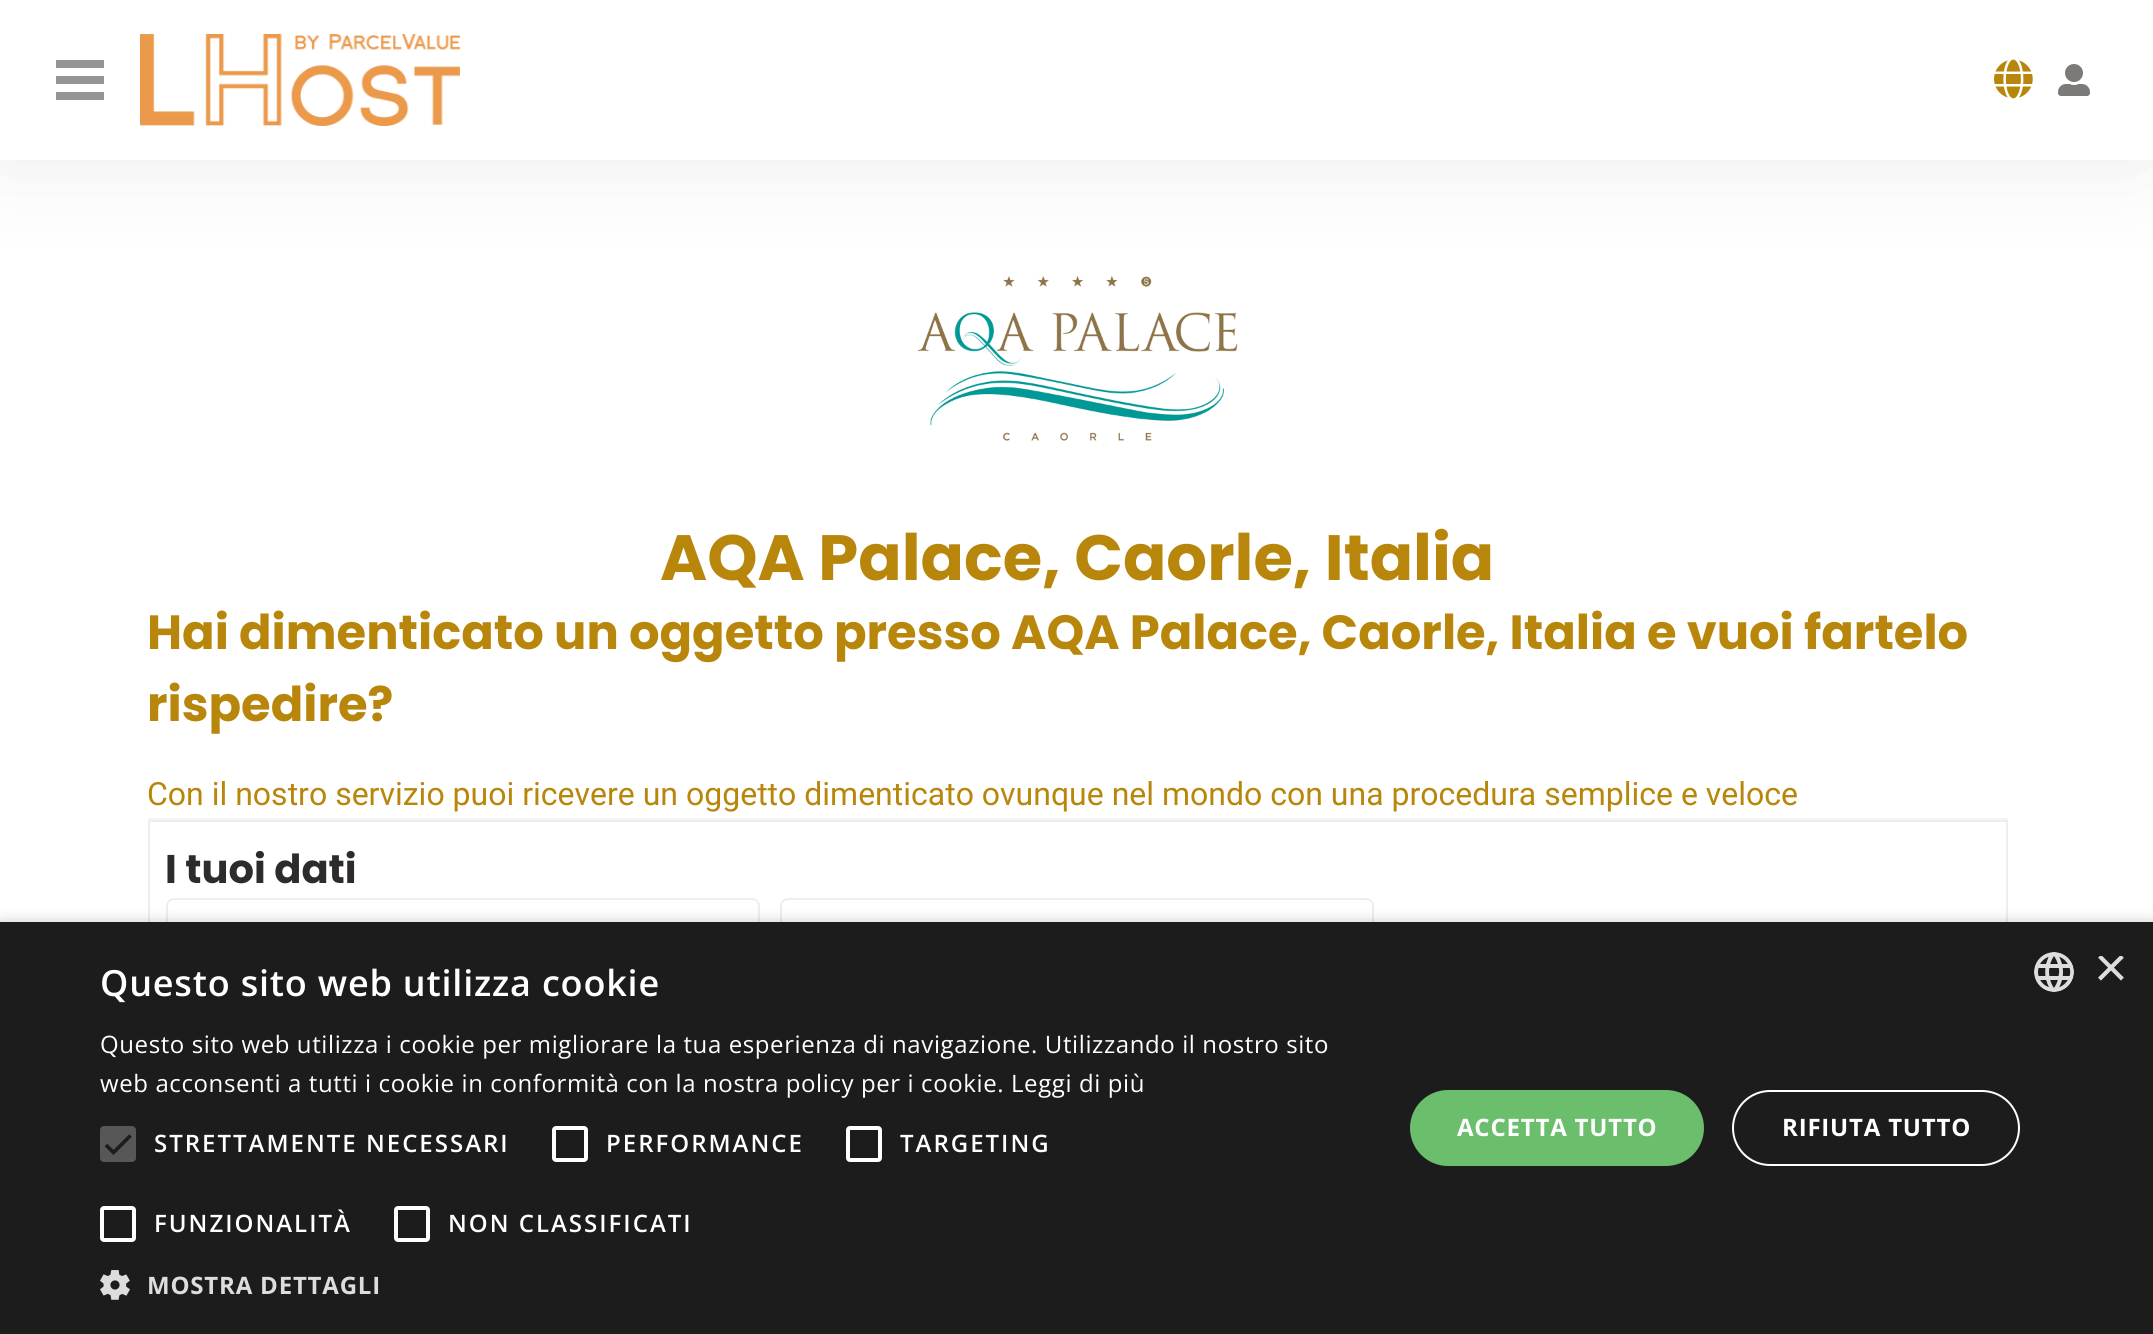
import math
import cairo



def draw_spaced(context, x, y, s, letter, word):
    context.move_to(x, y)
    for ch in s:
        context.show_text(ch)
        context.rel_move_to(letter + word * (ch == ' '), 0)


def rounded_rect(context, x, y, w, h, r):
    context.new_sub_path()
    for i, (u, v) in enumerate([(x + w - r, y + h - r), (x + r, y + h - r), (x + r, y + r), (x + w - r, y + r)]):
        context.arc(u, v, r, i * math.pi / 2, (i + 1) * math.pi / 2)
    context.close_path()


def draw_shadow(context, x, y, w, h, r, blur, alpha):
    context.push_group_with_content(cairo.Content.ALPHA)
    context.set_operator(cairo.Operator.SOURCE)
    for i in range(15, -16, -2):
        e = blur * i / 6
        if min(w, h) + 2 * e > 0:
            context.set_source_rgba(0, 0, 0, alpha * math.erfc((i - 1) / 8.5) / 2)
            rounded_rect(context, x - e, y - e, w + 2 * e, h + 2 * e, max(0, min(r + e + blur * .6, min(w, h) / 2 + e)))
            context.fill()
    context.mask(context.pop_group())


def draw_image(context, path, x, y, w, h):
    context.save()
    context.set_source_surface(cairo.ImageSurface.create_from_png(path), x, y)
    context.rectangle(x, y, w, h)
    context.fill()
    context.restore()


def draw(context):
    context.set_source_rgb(1, 1, 1)
    context.paint()
    draw_image(context, "images/4.png", 918, 276, 320, 165)
    context.set_source_rgb(0, 0, 0)
    draw_shadow(context, -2, 4, 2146, 152, 0, 50, 0.09)
    context.set_source_rgb(1, 1, 1)
    context.rectangle(0, 0, 2153, 160)
    context.fill()
    context.set_source_rgb(150 / 255, 149 / 255, 149 / 255)
    context.rectangle(56, 76, 48, 8)
    context.fill()
    context.rectangle(56, 60, 48, 8)
    context.fill()
    context.rectangle(56, 92, 48, 8)
    context.fill()
    draw_image(context, "images/1.png", 140, 34, 320, 92)
    draw_image(context, "images/2.png", 1994, 59, 39, 40)
    draw_image(context, "images/3.png", 2058, 64, 32, 32)
    context.set_source_rgb(245 / 255, 245 / 255, 245 / 255)
    context.rectangle(148, 818, 1860, 2)
    context.fill()
    context.rectangle(149, 821, 1858, 278)
    context.set_source_rgb(238 / 255, 238 / 255, 238 / 255)
    context.stroke()
    rounded_rect(context, 167, 899, 592, 74, 7)
    context.stroke()
    rounded_rect(context, 781, 899, 592, 74, 7)
    context.stroke()
    context.set_source_rgb(0, 0, 0)
    draw_shadow(context, 2, 926, 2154, 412, 0, 8, 0.35)
    context.set_source_rgb(28 / 255, 28 / 255, 28 / 255)
    context.rectangle(0, 922, 2153, 412)
    context.fill()
    context.set_source_rgb(87 / 255, 87 / 255, 87 / 255)
    rounded_rect(context, 100, 1126, 36, 36, 4)
    context.fill()
    context.new_path()
    context.move_to(106, 1145)
    context.line_to(113.5, 1152.5)
    context.line_to(130.5, 1135.5)
    context.set_source_rgb(28 / 255, 28 / 255, 28 / 255)
    context.set_line_width(3.6)
    context.stroke()
    rounded_rect(context, 554, 1128, 32, 32, 2)
    context.set_source_rgb(1, 1, 1)
    context.set_line_width(4)
    context.stroke()
    rounded_rect(context, 848, 1128, 32, 32, 2)
    context.stroke()
    rounded_rect(context, 102, 1208, 32, 32, 2)
    context.stroke()
    rounded_rect(context, 396, 1208, 32, 32, 2)
    context.stroke()
    draw_image(context, "images/5.png", 100, 1270, 30, 30)
    context.set_source_rgb(107 / 255, 190 / 255, 107 / 255)
    rounded_rect(context, 1410, 1090, 294, 76, 38)
    context.fill()
    rounded_rect(context, 1733, 1091, 286, 74, 37)
    context.set_source_rgb(1, 1, 1)
    context.set_line_width(2)
    context.stroke()
    draw_image(context, "images/6.png", 2034, 952, 40, 40)
    context.select_font_face("Poppins", cairo.FontSlant.NORMAL, cairo.FontWeight.BOLD)
    context.set_font_size(64)
    context.set_source_rgb(184 / 255, 134 / 255, 11 / 255)
    context.move_to(660, 580)
    context.show_text("AQA Palace, Caorle, Italia")
    context.set_font_size(48)
    context.move_to(147, 649)
    context.show_text("Hai dimenticato un oggetto presso AQA Palace, Caorle, Italia e vuoi fartelo")
    context.move_to(147, 721)
    context.show_text("rispedire?")
    context.select_font_face("Roboto")
    context.set_font_size(32)
    context.move_to(147, 805)
    context.show_text("Con il nostro servizio puoi ricevere un oggetto dimenticato ovunque nel mondo con una procedura semplice e veloce")
    context.select_font_face("Poppins", cairo.FontSlant.NORMAL, cairo.FontWeight.BOLD)
    context.set_font_size(40)
    context.set_source_rgb(45 / 255, 44 / 255, 43 / 255)
    context.move_to(165, 883)
    context.show_text("I tuoi dati")
    context.select_font_face("Open Sans SemiBold")
    context.set_font_size(36)
    context.set_source_rgb(1, 1, 1)
    draw_spaced(context, 100, 996, "Questo sito web utilizza cookie", 0.8, 0)
    context.select_font_face("Open Sans")
    context.set_font_size(24)
    draw_spaced(context, 100, 1053, "Questo sito web utilizza i cookie per migliorare la tua esperienza di navigazione. Utilizzando il nostro sito", 0.6, 0)
    draw_spaced(context, 100, 1092, "web acconsenti a tutti i cookie in conformità con la nostra policy per i cookie. Leggi di più", 0.6, 0)
    context.select_font_face("Open Sans SemiBold")
    draw_spaced(context, 154, 1152, "STRETTAMENTE NECESSARI", 2, 0)
    draw_spaced(context, 606, 1152, "PERFORMANCE", 2, 0)
    draw_spaced(context, 900, 1152, "TARGETING", 2, 0)
    draw_spaced(context, 154, 1232, "FUNZIONALITÀ", 2, 0)
    draw_spaced(context, 448, 1232, "NON CLASSIFICATI", 2, 0)
    context.select_font_face("Open Sans", cairo.FontSlant.NORMAL, cairo.FontWeight.BOLD)
    context.set_source_rgb(221 / 255, 221 / 255, 221 / 255)
    draw_spaced(context, 147, 1294, "MOSTRA DETTAGLI", 0.8, 0)
    context.set_source_rgb(1, 1, 1)
    draw_spaced(context, 1457, 1136, "ACCETTA TUTTO", 0.8, 0)
    draw_spaced(context, 1782, 1136, "RIFIUTA TUTTO", 0.8, 0)
    context.save()
    context.rectangle(2094, 956, 30, 30)
    context.clip()
    context.select_font_face("Liberation Sans")
    context.set_font_size(58)
    context.set_source_rgb(221 / 255, 221 / 255, 221 / 255)
    context.move_to(2094, 987)
    context.show_text("×")
    context.restore()


surface = cairo.ImageSurface(cairo.Format.RGB24, 2153, 1334)
context = cairo.Context(surface)
options = cairo.FontOptions()
options.set_hint_metrics(cairo.HintMetrics.OFF)
options.set_hint_style(cairo.HintStyle.NONE)
context.set_font_options(options)
context.set_miter_limit(4)
draw(context)
surface.write_to_png("out.png")
